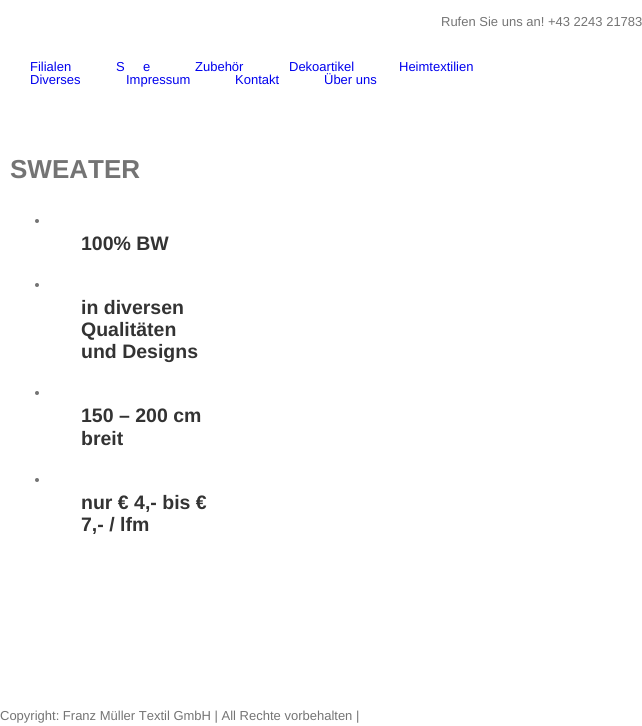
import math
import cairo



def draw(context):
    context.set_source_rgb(1, 1, 1)
    context.paint()
    context.set_source_rgb(116 / 255, 116 / 255, 116 / 255)
    context.arc(37, 221, 2, 0, 2 * math.pi)
    context.fill()
    context.arc(37, 285, 2, 0, 2 * math.pi)
    context.fill()
    context.arc(37, 393, 2, 0, 2 * math.pi)
    context.fill()
    context.arc(37, 480, 2, 0, 2 * math.pi)
    context.fill()
    context.select_font_face("Liberation Sans")
    context.set_font_size(13)
    context.move_to(441, 26)
    context.show_text("Rufen Sie uns an! +43 2243 21783")
    context.set_source_rgb(0, 0, 238 / 255)
    context.move_to(30, 71)
    context.show_text("Filialen")
    context.move_to(116, 71)
    context.show_text("S")
    context.move_to(143, 71)
    context.show_text("e")
    context.set_source_rgb(1, 1, 1)
    context.new_path()
    context.move_to(121.5, 60)
    context.line_to(133, 72)
    context.line_to(144.5, 60)
    context.close_path()
    context.fill()
    context.set_source_rgb(0, 0, 238 / 255)
    context.move_to(195, 71)
    context.show_text("Zubehör")
    context.move_to(289, 71)
    context.show_text("Dekoartikel")
    context.move_to(399, 71)
    context.show_text("Heimtextilien")
    context.move_to(30, 84)
    context.show_text("Diverses")
    context.move_to(126, 84)
    context.show_text("Impressum")
    context.move_to(235, 84)
    context.show_text("Kontakt")
    context.move_to(324, 84)
    context.show_text("Über uns")
    context.select_font_face("Liberation Sans", cairo.FontSlant.NORMAL, cairo.FontWeight.BOLD)
    context.set_font_size(26)
    context.set_source_rgb(116 / 255, 116 / 255, 116 / 255)
    context.move_to(10, 178)
    context.show_text("SWEATER")
    context.set_font_size(19.5)
    context.set_source_rgb(51 / 255, 51 / 255, 51 / 255)
    context.move_to(81, 250)
    context.show_text("100% BW")
    context.move_to(81, 314)
    context.show_text("in diversen")
    context.move_to(81, 336)
    context.show_text("Qualitäten")
    context.move_to(81, 358)
    context.show_text("und Designs")
    context.move_to(81, 422)
    context.show_text("150 – 200 cm")
    context.move_to(81, 445)
    context.show_text("breit")
    context.move_to(81, 509)
    context.show_text("nur € 4,- bis €")
    context.move_to(81, 531)
    context.show_text("7,- / lfm")
    context.select_font_face("Liberation Sans")
    context.set_font_size(13)
    context.set_source_rgb(116 / 255, 116 / 255, 116 / 255)
    context.move_to(0, 720)
    context.show_text("Copyright: Franz Müller Textil GmbH | All Rechte vorbehalten |")


surface = cairo.ImageSurface(cairo.Format.RGB24, 642, 726)
context = cairo.Context(surface)
options = cairo.FontOptions()
options.set_hint_metrics(cairo.HintMetrics.OFF)
options.set_hint_style(cairo.HintStyle.NONE)
context.set_font_options(options)
context.set_miter_limit(4)
draw(context)
surface.write_to_png("out.png")
